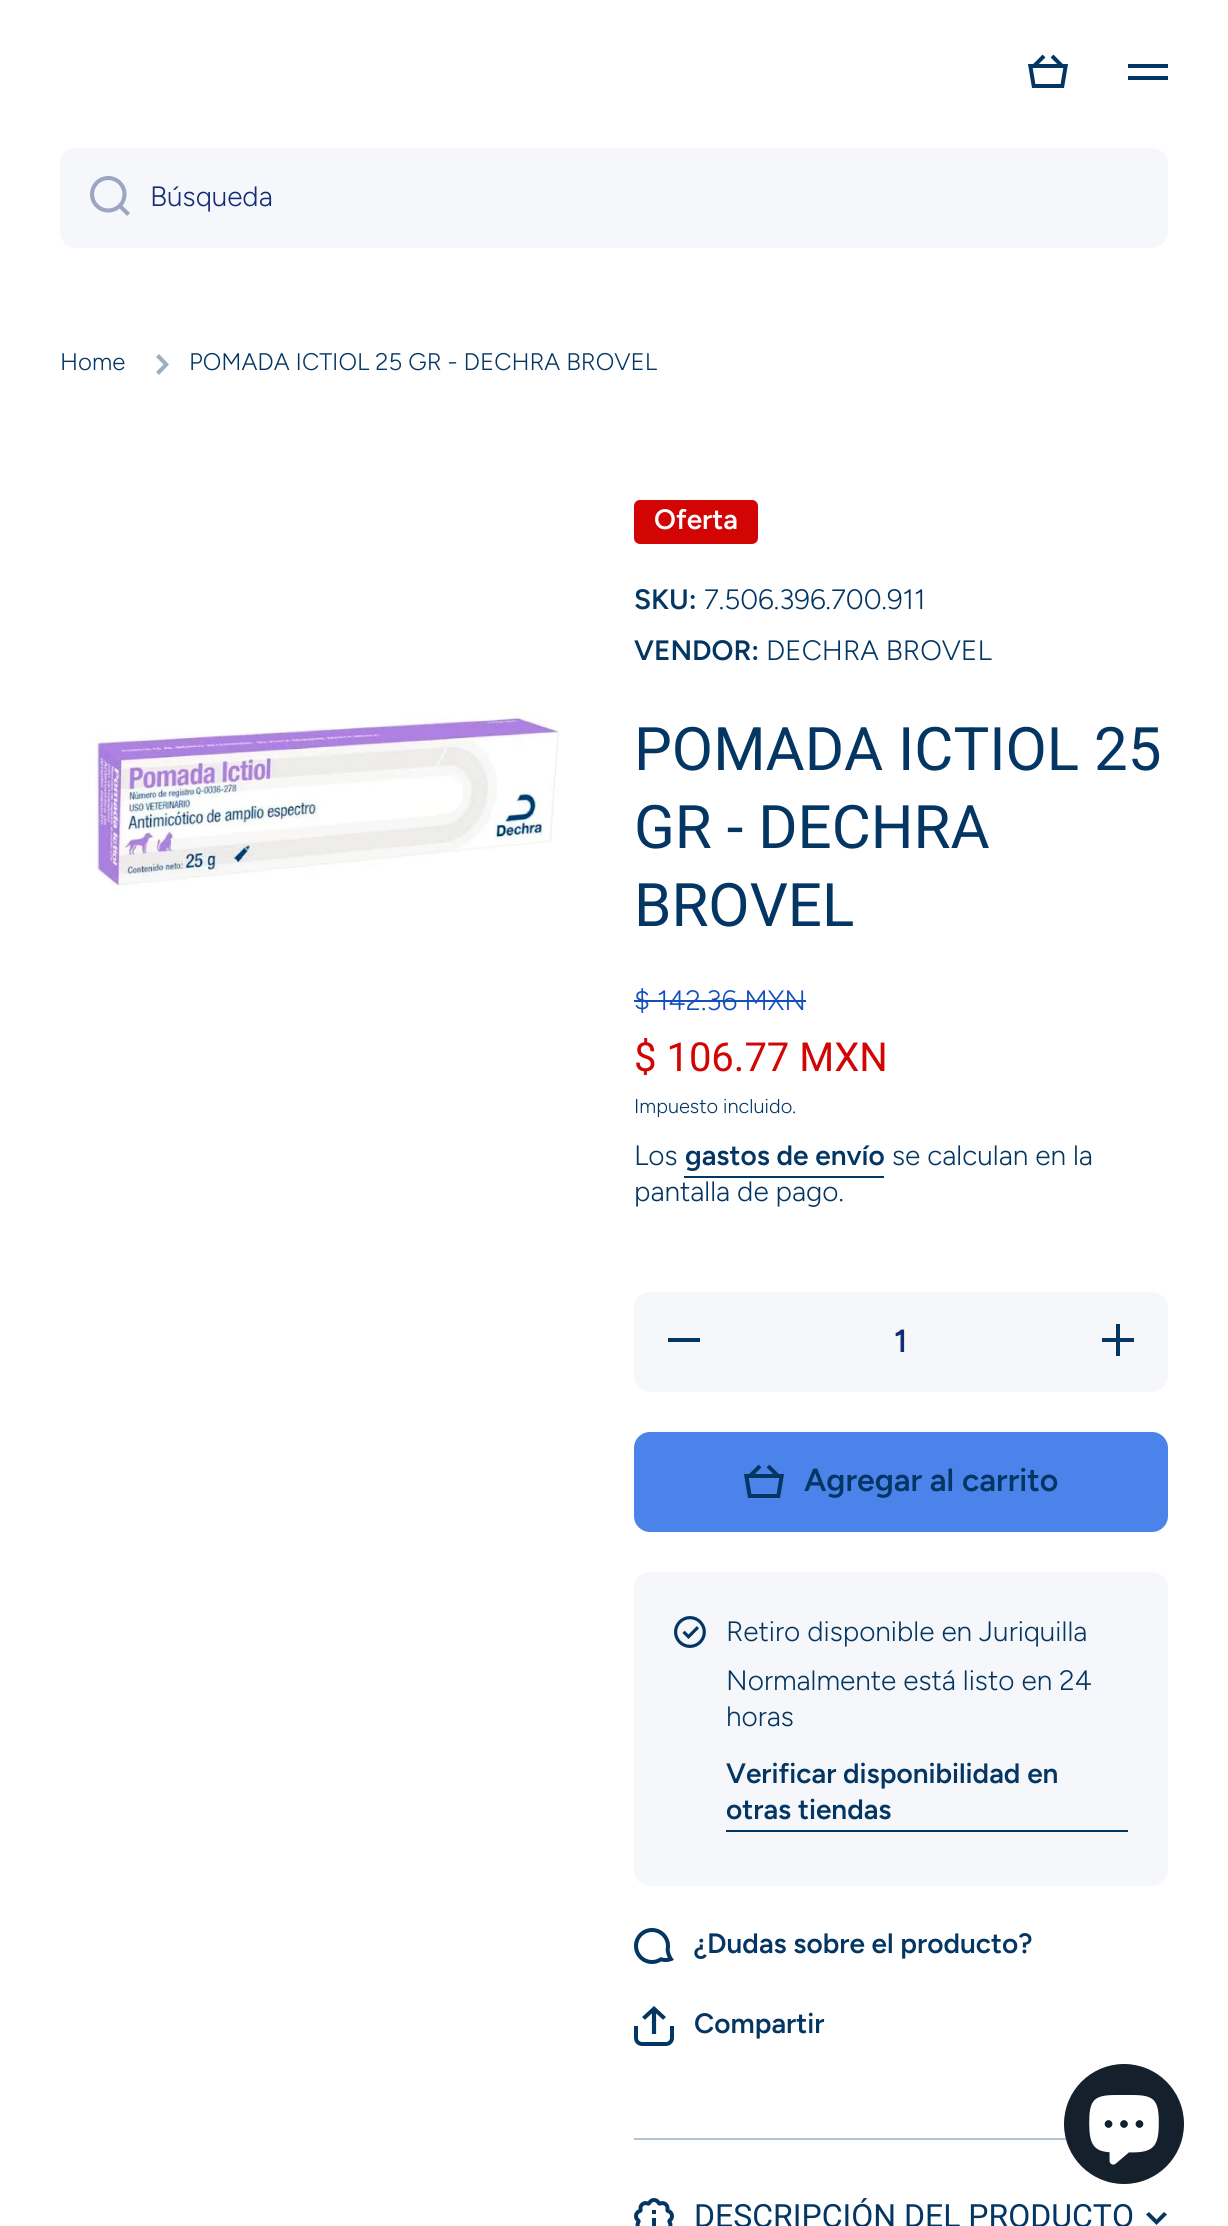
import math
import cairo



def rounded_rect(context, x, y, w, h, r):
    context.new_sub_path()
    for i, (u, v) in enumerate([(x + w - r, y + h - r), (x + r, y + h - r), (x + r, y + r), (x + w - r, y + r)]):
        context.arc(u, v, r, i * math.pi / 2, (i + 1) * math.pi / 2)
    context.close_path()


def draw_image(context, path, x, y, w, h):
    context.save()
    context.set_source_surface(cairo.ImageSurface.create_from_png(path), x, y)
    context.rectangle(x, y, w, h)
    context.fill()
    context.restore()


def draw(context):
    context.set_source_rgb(1, 1, 1)
    context.paint()
    draw_image(context, "images/1.png", 1028, 54, 40, 34)
    context.set_source_rgb(4 / 255, 54 / 255, 100 / 255)
    context.rectangle(1128, 64, 40, 4)
    context.fill()
    context.rectangle(1128, 76, 40, 4)
    context.fill()
    context.set_source_rgb(246 / 255, 247 / 255, 250 / 255)
    rounded_rect(context, 60, 148, 1108, 100, 16)
    context.fill()
    draw_image(context, "images/2.png", 90, 176, 40, 40)
    context.set_source_rgb(155 / 255, 175 / 255, 193 / 255)
    context.set_fill_rule(cairo.FillRule.EVEN_ODD)
    context.new_path()
    context.move_to(163.5, 364.5)
    context.line_to(156, 357)
    context.line_to(159, 354)
    context.line_to(169, 364.5)
    context.line_to(159, 375)
    context.line_to(156, 372)
    context.close_path()
    context.fill()
    draw_image(context, "images/3.png", 95, 711, 465, 179)
    context.set_source_rgb(210 / 255, 4 / 255, 4 / 255)
    rounded_rect(context, 634, 500, 124, 44, 6)
    context.fill()
    context.set_source_rgb(21 / 255, 79 / 255, 188 / 255)
    context.rectangle(634, 1000, 172, 2)
    context.fill()
    context.set_source_rgb(4 / 255, 54 / 255, 100 / 255)
    context.rectangle(684, 1176, 200, 2)
    context.fill()
    context.set_source_rgb(246 / 255, 247 / 255, 250 / 255)
    rounded_rect(context, 634, 1292, 534, 100, 16)
    context.fill()
    context.set_source_rgb(4 / 255, 54 / 255, 100 / 255)
    context.rectangle(668, 1338, 32, 4)
    context.fill()
    draw_image(context, "images/4.png", 1102, 1324, 32, 32)
    context.set_source_rgb(75 / 255, 131 / 255, 235 / 255)
    rounded_rect(context, 634, 1432, 534, 100, 16)
    context.fill()
    draw_image(context, "images/5.png", 744, 1464, 40, 34)
    context.set_source_rgb(246 / 255, 247 / 255, 250 / 255)
    rounded_rect(context, 634, 1572, 534, 314, 16)
    context.fill()
    draw_image(context, "images/6.png", 674, 1616, 32, 32)
    context.set_source_rgb(4 / 255, 54 / 255, 100 / 255)
    context.rectangle(726, 1830, 402, 2)
    context.fill()
    draw_image(context, "images/7.png", 634, 1928, 40, 36)
    draw_image(context, "images/8.png", 634, 2006, 40, 40)
    context.set_source_rgb(180 / 255, 195 / 255, 209 / 255)
    context.rectangle(634, 2138, 433, 2)
    context.fill()
    draw_image(context, "images/9.png", 634, 2198, 40, 28)
    context.set_source_rgb(4 / 255, 54 / 255, 100 / 255)
    context.new_path()
    context.move_to(1156.5, 2219.5)
    context.line_to(1149, 2212)
    context.line_to(1146, 2214.5)
    context.line_to(1156.5, 2225)
    context.line_to(1167, 2214.5)
    context.line_to(1164, 2212)
    context.close_path()
    context.fill()
    context.set_source_rgb(20 / 255, 33 / 255, 45 / 255)
    context.arc(1124, 2124, 60, 0, 2 * math.pi)
    context.fill()
    draw_image(context, "images/10.png", 1089, 2095, 70, 70)
    context.select_font_face("Figtree Light")
    context.set_font_size(28)
    context.set_source_rgb(20 / 255, 44 / 255, 115 / 255)
    context.move_to(150, 206)
    context.show_text("Búsqueda")
    context.set_font_size(24)
    context.set_source_rgb(4 / 255, 54 / 255, 100 / 255)
    context.move_to(60, 370)
    context.show_text("Home")
    context.move_to(189, 370)
    context.show_text("POMADA ICTIOL 25 GR - DECHRA BROVEL")
    context.select_font_face("Figtree SemiBold")
    context.set_font_size(28)
    context.set_source_rgb(1, 1, 1)
    context.move_to(654, 529)
    context.show_text("Oferta")
    context.set_source_rgb(4 / 255, 54 / 255, 100 / 255)
    context.move_to(634, 609)
    context.show_text("SKU:")
    context.select_font_face("Figtree Light")
    context.move_to(704, 609)
    context.show_text("7.506.396.700.911")
    context.select_font_face("Figtree SemiBold")
    context.move_to(634, 660)
    context.show_text("VENDOR:")
    context.select_font_face("Figtree Light")
    context.move_to(766, 660)
    context.show_text("DECHRA BROVEL")
    context.select_font_face("Roboto")
    context.set_font_size(60)
    context.move_to(634, 770)
    context.show_text("POMADA ICTIOL 25")
    context.move_to(634, 848)
    context.show_text("GR - DECHRA")
    context.move_to(634, 926)
    context.show_text("BROVEL")
    context.select_font_face("Figtree Light")
    context.set_font_size(28)
    context.set_source_rgb(21 / 255, 79 / 255, 188 / 255)
    context.move_to(634, 1010)
    context.show_text("$ 142.36 MXN")
    context.select_font_face("Roboto")
    context.set_font_size(40)
    context.set_source_rgb(210 / 255, 4 / 255, 4 / 255)
    context.move_to(634, 1071)
    context.show_text("$ 106.77 MXN")
    context.select_font_face("Figtree Light")
    context.set_font_size(20)
    context.set_source_rgb(4 / 255, 54 / 255, 100 / 255)
    context.move_to(634, 1113)
    context.show_text("Impuesto incluido.")
    context.set_font_size(28)
    context.move_to(634, 1165)
    context.show_text("Los")
    context.select_font_face("Figtree SemiBold")
    context.move_to(685, 1165)
    context.show_text("gastos de envío")
    context.select_font_face("Figtree Light")
    context.move_to(892, 1165)
    context.show_text("se calculan en la")
    context.move_to(634, 1201)
    context.show_text("pantalla de pago.")
    context.select_font_face("Figtree SemiBold")
    context.set_font_size(32)
    context.set_source_rgb(20 / 255, 44 / 255, 115 / 255)
    context.move_to(894, 1352)
    context.show_text("1")
    context.set_source_rgb(4 / 255, 54 / 255, 100 / 255)
    context.move_to(804, 1491)
    context.show_text("Agregar al carrito")
    context.select_font_face("Figtree Light")
    context.set_font_size(28)
    context.move_to(726, 1641)
    context.show_text("Retiro disponible en Juriquilla")
    context.move_to(726, 1690)
    context.show_text("Normalmente está listo en 24")
    context.move_to(726, 1726)
    context.show_text("horas")
    context.select_font_face("Figtree SemiBold")
    context.move_to(726, 1783)
    context.show_text("Verificar disponibilidad en")
    context.move_to(726, 1819)
    context.show_text("otras tiendas")
    context.move_to(694, 1953)
    context.show_text("¿Dudas sobre el producto?")
    context.move_to(694, 2033)
    context.show_text("Compartir")
    context.select_font_face("Roboto")
    context.set_font_size(32)
    context.move_to(694, 2227)
    context.show_text("DESCRIPCIÓN DEL PRODUCTO")


surface = cairo.ImageSurface(cairo.Format.RGB24, 1228, 2226)
context = cairo.Context(surface)
options = cairo.FontOptions()
options.set_hint_metrics(cairo.HintMetrics.OFF)
options.set_hint_style(cairo.HintStyle.NONE)
context.set_font_options(options)
context.set_miter_limit(4)
draw(context)
surface.write_to_png("out.png")
